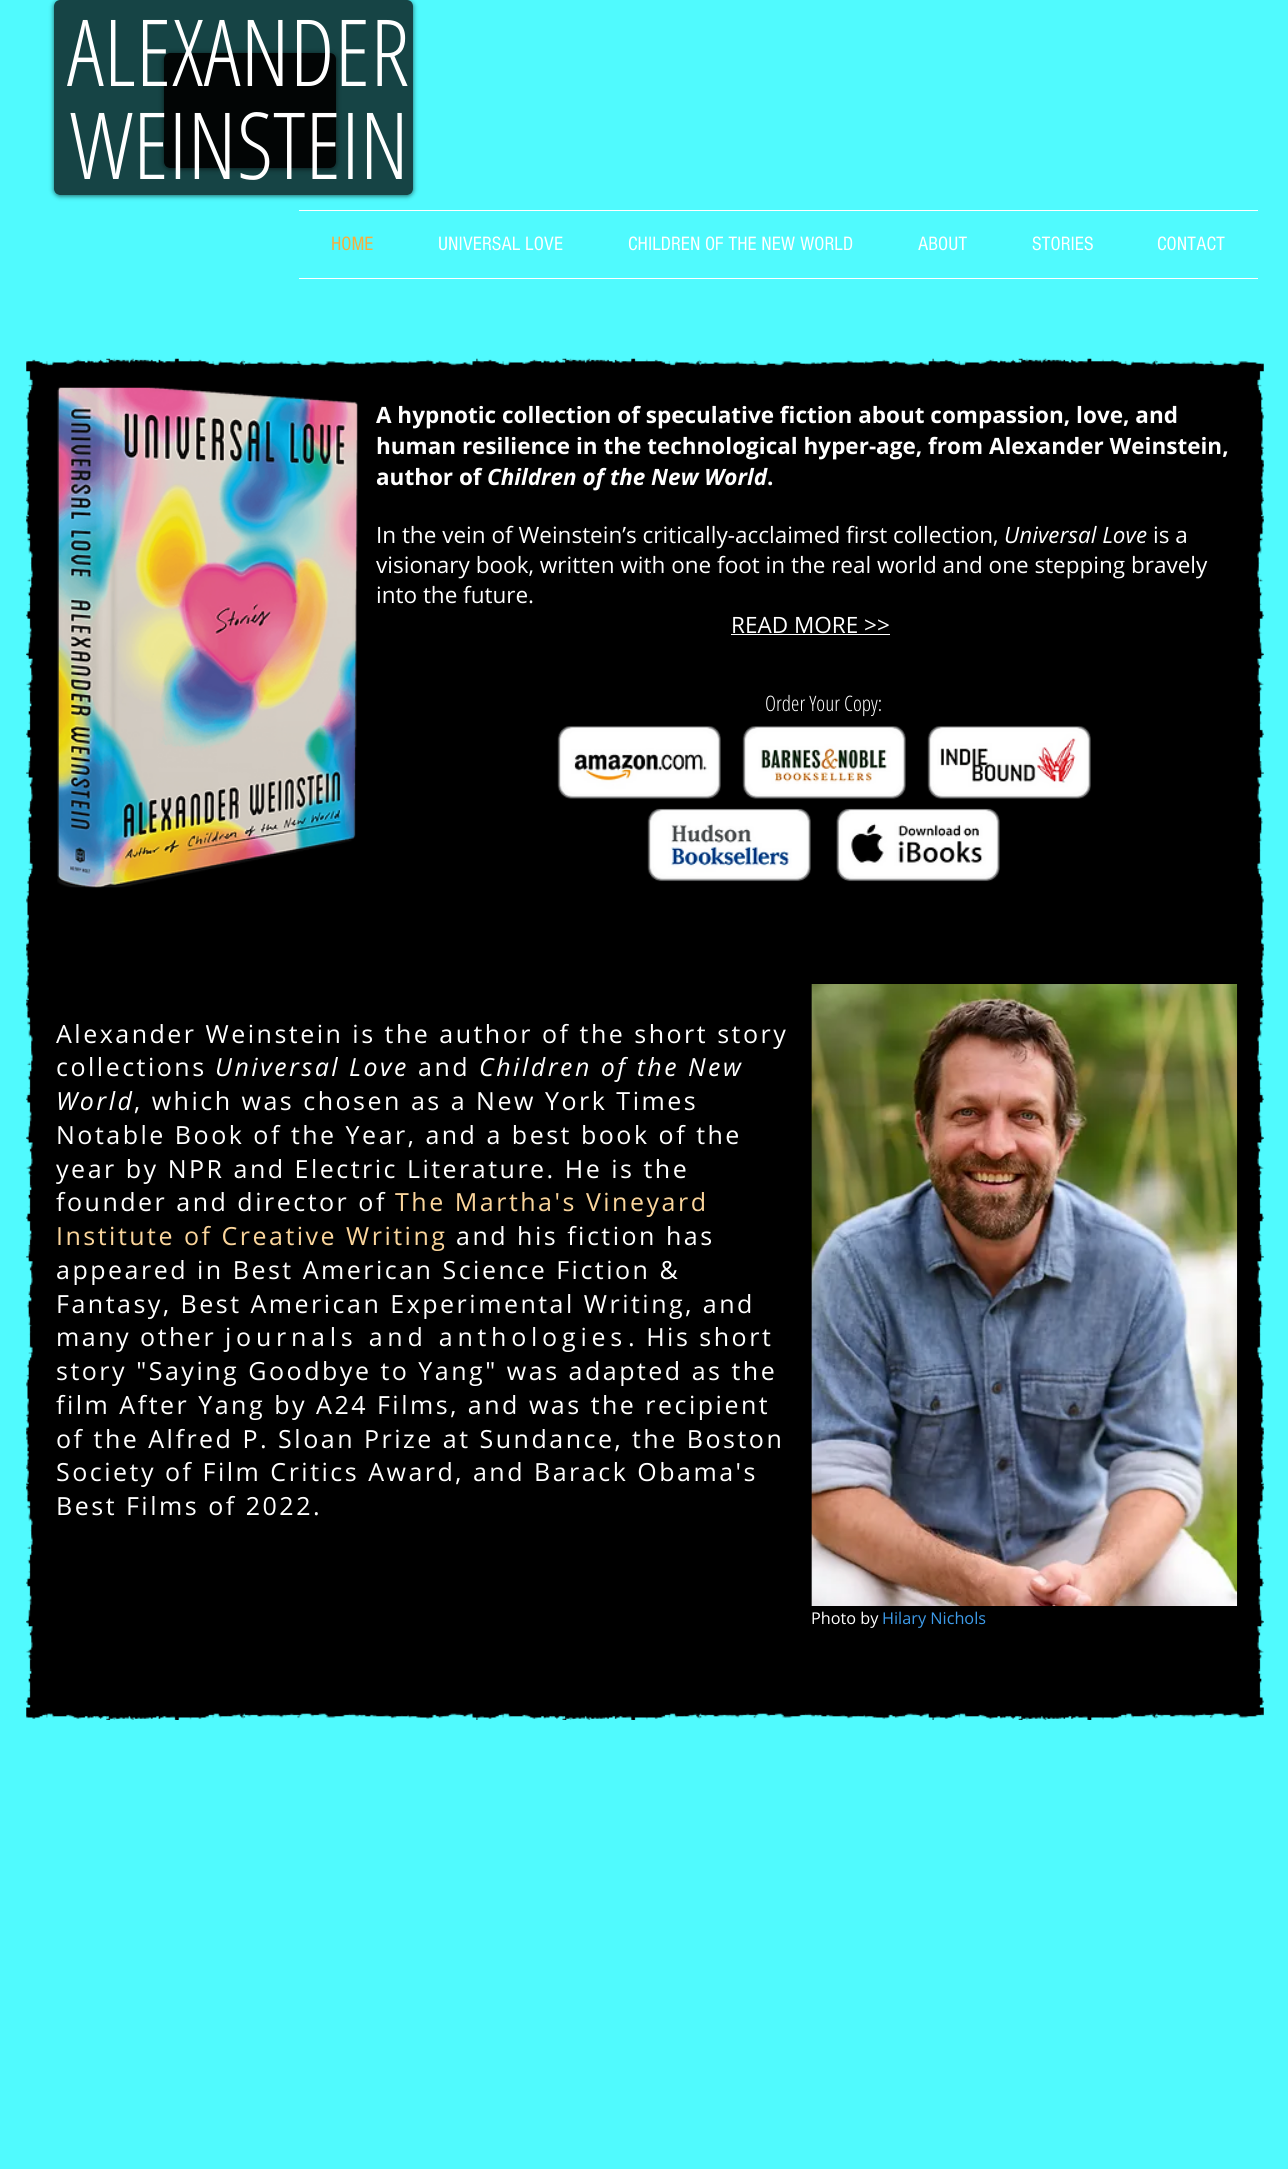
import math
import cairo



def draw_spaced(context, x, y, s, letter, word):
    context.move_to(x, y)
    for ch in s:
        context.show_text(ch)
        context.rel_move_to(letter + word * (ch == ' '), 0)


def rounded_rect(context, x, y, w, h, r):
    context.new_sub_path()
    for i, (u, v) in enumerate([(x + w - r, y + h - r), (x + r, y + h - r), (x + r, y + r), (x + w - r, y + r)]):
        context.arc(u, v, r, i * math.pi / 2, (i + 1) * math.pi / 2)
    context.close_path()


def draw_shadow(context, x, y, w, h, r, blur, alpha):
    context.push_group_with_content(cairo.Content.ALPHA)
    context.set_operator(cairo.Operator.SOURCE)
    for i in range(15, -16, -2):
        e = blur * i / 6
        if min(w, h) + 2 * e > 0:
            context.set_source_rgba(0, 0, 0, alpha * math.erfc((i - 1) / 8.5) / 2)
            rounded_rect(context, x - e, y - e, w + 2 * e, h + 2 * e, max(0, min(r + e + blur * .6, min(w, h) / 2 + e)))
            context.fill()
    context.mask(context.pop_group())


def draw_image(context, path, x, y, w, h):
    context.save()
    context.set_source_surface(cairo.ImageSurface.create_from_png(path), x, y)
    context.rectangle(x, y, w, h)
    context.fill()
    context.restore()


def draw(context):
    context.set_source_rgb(80 / 255, 250 / 255, 254 / 255)
    context.paint()
    context.save()
    context.set_fill_rule(cairo.FillRule.EVEN_ODD)
    context.new_path()
    context.move_to(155, 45)
    context.line_to(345, 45)
    context.line_to(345, 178)
    context.line_to(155, 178)
    context.close_path()
    context.move_to(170, 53)
    context.line_to(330, 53)
    context.curve_to(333.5, 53, 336, 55.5, 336, 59)
    context.line_to(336, 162)
    context.curve_to(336, 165.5, 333.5, 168, 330, 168)
    context.line_to(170, 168)
    context.curve_to(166.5, 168, 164, 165.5, 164, 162)
    context.line_to(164, 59)
    context.curve_to(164, 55.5, 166.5, 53, 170, 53)
    context.close_path()
    context.clip()
    context.set_source_rgb(0, 0, 0)
    draw_shadow(context, 164, 54, 172, 115, 6, 2.5, 0.6)
    context.restore()
    context.set_source_rgba(0, 0, 0, 0.92)
    rounded_rect(context, 164, 53, 172, 115, 6)
    context.fill()
    context.save()
    context.set_fill_rule(cairo.FillRule.EVEN_ODD)
    context.new_path()
    context.move_to(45, 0)
    context.line_to(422, 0)
    context.line_to(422, 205)
    context.line_to(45, 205)
    context.close_path()
    context.move_to(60, 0)
    context.line_to(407, 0)
    context.curve_to(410.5, 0, 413, 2.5, 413, 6)
    context.line_to(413, 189)
    context.curve_to(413, 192.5, 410.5, 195, 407, 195)
    context.line_to(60, 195)
    context.curve_to(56.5, 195, 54, 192.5, 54, 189)
    context.line_to(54, 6)
    context.curve_to(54, 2.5, 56.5, 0, 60, 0)
    context.close_path()
    context.clip()
    context.set_source_rgb(0, 0, 0)
    draw_shadow(context, 54, 1, 359, 195, 6, 2.5, 0.6)
    context.restore()
    context.set_source_rgba(0, 0, 0, 0.73)
    rounded_rect(context, 54, 0, 359, 195, 6)
    context.fill()
    context.set_source_rgb(1, 1, 1)
    context.rectangle(299, 210, 959, 1)
    context.fill()
    context.rectangle(299, 278, 959, 1)
    context.fill()
    context.set_source_rgb(0, 0, 0)
    context.rectangle(36, 371, 1218, 1337)
    context.fill()
    draw_image(context, "images/1.png", 26, 358, 1238, 14)
    draw_image(context, "images/2.png", 26, 1707, 1238, 13)
    draw_image(context, "images/3.png", 26, 371, 10, 1337)
    draw_image(context, "images/4.png", 1254, 371, 10, 1337)
    draw_image(context, "images/5.png", 57, 387, 301, 501)
    context.set_source_rgb(1, 1, 1)
    context.rectangle(731, 634, 159, 1)
    context.fill()
    draw_image(context, "images/6.png", 557, 726, 164, 73)
    draw_image(context, "images/7.png", 742, 726, 164, 73)
    draw_image(context, "images/8.png", 927, 726, 164, 73)
    draw_image(context, "images/9.png", 647, 808, 164, 74)
    draw_image(context, "images/10.png", 836, 808, 164, 74)
    draw_image(context, "images/11.png", 811, 984, 427, 622)
    context.select_font_face("Open Sans Condensed Light")
    context.set_font_size(92.5)
    context.move_to(67, 86)
    context.show_text("ALEXANDER")
    context.move_to(70, 179)
    context.show_text("WEINSTEIN")
    context.select_font_face("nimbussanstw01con")
    context.set_font_size(20)
    context.set_source_rgb(249 / 255, 173 / 255, 59 / 255)
    context.move_to(331, 250)
    context.show_text("HOME")
    context.set_source_rgb(1, 1, 1)
    context.move_to(438, 250)
    context.show_text("UNIVERSAL LOVE")
    context.move_to(628, 250)
    context.show_text("CHILDREN OF THE NEW WORLD")
    context.move_to(918, 250)
    context.show_text("ABOUT")
    context.move_to(1032, 250)
    context.show_text("STORIES")
    context.move_to(1157, 250)
    context.show_text("CONTACT")
    context.select_font_face("Open Sans", cairo.FontSlant.NORMAL, cairo.FontWeight.BOLD)
    context.set_font_size(22.5)
    context.move_to(376, 423)
    context.show_text("A hypnotic collection of speculative fiction about compassion, love, and")
    context.move_to(376, 454)
    context.show_text("human resilience in the technological hyper-age, from Alexander Weinstein,")
    context.move_to(376, 485)
    context.show_text("author of")
    context.select_font_face("Open Sans", cairo.FontSlant.ITALIC, cairo.FontWeight.BOLD)
    context.move_to(487, 485)
    context.show_text("Children of the New World")
    context.select_font_face("Open Sans", cairo.FontSlant.NORMAL, cairo.FontWeight.BOLD)
    context.move_to(767, 485)
    context.show_text(".")
    context.select_font_face("Open Sans")
    context.move_to(376, 543)
    context.show_text("In the vein of Weinstein’s critically-acclaimed first collection,")
    context.select_font_face("Open Sans", cairo.FontSlant.ITALIC)
    context.move_to(1004, 543)
    context.show_text("Universal Love")
    context.select_font_face("Open Sans")
    context.move_to(1153, 543)
    context.show_text("is a")
    context.move_to(376, 573)
    context.show_text("visionary book, written with one foot in the real world and one stepping bravely")
    context.move_to(376, 603)
    context.show_text("into the future.")
    context.move_to(731, 633)
    context.show_text("READ MORE >>")
    context.select_font_face("Open Sans Condensed Light")
    context.set_font_size(21.25)
    context.move_to(765, 711)
    context.show_text("Order Your Copy:")
    context.select_font_face("Open Sans")
    context.set_font_size(25)
    draw_spaced(context, 56, 1043, "Alexander Weinstein is the author of the short story", 2.5, 0)
    draw_spaced(context, 56, 1076, "collections", 2.5, 0)
    context.select_font_face("Open Sans", cairo.FontSlant.ITALIC)
    draw_spaced(context, 215, 1076, "Universal Love", 2.5, 0)
    context.select_font_face("Open Sans")
    draw_spaced(context, 418, 1076, "and", 2.5, 0)
    context.select_font_face("Open Sans", cairo.FontSlant.ITALIC)
    draw_spaced(context, 479, 1076, "Children of the New", 2.5, 0)
    draw_spaced(context, 56, 1110, "World", 2.5, 0)
    context.select_font_face("Open Sans")
    draw_spaced(context, 134, 1110, ", which was chosen as a New York Times", 2.5, 0)
    draw_spaced(context, 56, 1144, "Notable Book of the Year, and a best book of the", 2.5, 0)
    draw_spaced(context, 56, 1178, "year by NPR and Electric Literature. He is the", 2.5, 0)
    draw_spaced(context, 56, 1211, "founder and director of", 2.5, 0)
    context.set_source_rgb(251 / 255, 213 / 255, 155 / 255)
    draw_spaced(context, 395, 1211, "The Martha's Vineyard", 2.5, 0)
    draw_spaced(context, 56, 1245, "Institute of Creative Writing", 2.5, 0)
    context.set_source_rgb(1, 1, 1)
    draw_spaced(context, 456, 1245, "and his fiction has", 2.5, 0)
    draw_spaced(context, 56, 1279, "appeared in Best American Science Fiction &", 2.5, 0)
    draw_spaced(context, 56, 1313, "Fantasy, Best American Experimental Writing, and", 2.5, 0)
    draw_spaced(context, 56, 1346, "many other", 2.5, 0)
    draw_spaced(context, 225, 1346, "journals and anthologies", 4.75, 0)
    draw_spaced(context, 628, 1346, ". His short", 2.5, 0)
    draw_spaced(context, 56, 1380, "story \"Saying Goodbye to Yang\" was adapted as the", 2.5, 0)
    draw_spaced(context, 56, 1414, "film After Yang by A24 Films, and was the recipient", 2.5, 0)
    draw_spaced(context, 56, 1448, "of the Alfred P. Sloan Prize at Sundance, the Boston", 2.5, 0)
    draw_spaced(context, 56, 1481, "Society of Film Critics Award, and Barack Obama's", 2.5, 0)
    draw_spaced(context, 56, 1515, "Best Films of 2022.", 2.5, 0)
    context.set_font_size(16.25)
    context.move_to(811, 1624)
    context.show_text("Photo by")
    context.set_source_rgb(61 / 255, 155 / 255, 233 / 255)
    context.move_to(882, 1624)
    context.show_text("Hilary Nichols")


surface = cairo.ImageSurface(cairo.Format.RGB24, 1288, 2169)
context = cairo.Context(surface)
options = cairo.FontOptions()
options.set_hint_metrics(cairo.HintMetrics.OFF)
options.set_hint_style(cairo.HintStyle.NONE)
context.set_font_options(options)
context.set_miter_limit(4)
draw(context)
surface.write_to_png("out.png")
